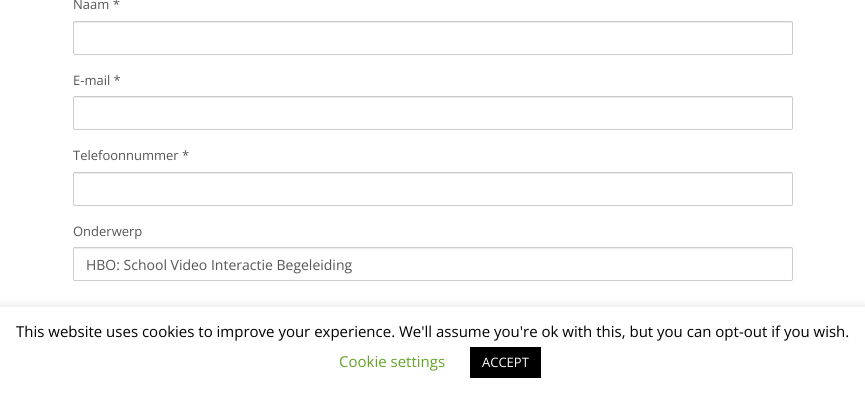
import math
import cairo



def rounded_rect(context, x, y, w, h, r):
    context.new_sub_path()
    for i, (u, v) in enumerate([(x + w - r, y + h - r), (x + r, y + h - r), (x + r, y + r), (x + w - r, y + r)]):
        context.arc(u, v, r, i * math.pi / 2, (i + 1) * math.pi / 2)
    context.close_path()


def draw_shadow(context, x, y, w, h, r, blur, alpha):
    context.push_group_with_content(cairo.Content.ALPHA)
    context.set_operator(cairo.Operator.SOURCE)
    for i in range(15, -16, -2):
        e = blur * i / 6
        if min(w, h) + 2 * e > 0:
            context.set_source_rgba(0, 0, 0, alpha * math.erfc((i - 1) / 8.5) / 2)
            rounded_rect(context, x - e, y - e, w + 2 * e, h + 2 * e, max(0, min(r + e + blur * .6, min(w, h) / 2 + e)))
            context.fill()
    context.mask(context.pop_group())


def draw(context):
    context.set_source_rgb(1, 1, 1)
    context.paint()
    context.set_source_rgb(236 / 255, 236 / 255, 236 / 255)
    context.new_path()
    context.move_to(75, 23)
    context.line_to(791, 23)
    context.curve_to(792, 23, 792, 23, 792, 24)
    context.curve_to(792, 23, 792, 22, 791, 22)
    context.line_to(75, 22)
    context.curve_to(74, 22, 74, 23, 74, 24)
    context.curve_to(74, 23, 74, 23, 75, 23)
    context.close_path()
    context.fill()
    rounded_rect(context, 73.5, 21.5, 719, 33, 1.5)
    context.set_source_rgb(204 / 255, 204 / 255, 204 / 255)
    context.set_line_width(1)
    context.stroke()
    context.set_source_rgb(236 / 255, 236 / 255, 236 / 255)
    context.new_path()
    context.move_to(75, 98)
    context.line_to(791, 98)
    context.curve_to(792, 98, 792, 98, 792, 99)
    context.curve_to(792, 98, 792, 97, 791, 97)
    context.line_to(75, 97)
    context.curve_to(74, 97, 74, 98, 74, 99)
    context.curve_to(74, 98, 74, 98, 75, 98)
    context.close_path()
    context.fill()
    rounded_rect(context, 73.5, 96.5, 719, 33, 1.5)
    context.set_source_rgb(204 / 255, 204 / 255, 204 / 255)
    context.stroke()
    context.set_source_rgb(236 / 255, 236 / 255, 236 / 255)
    context.new_path()
    context.move_to(75, 174)
    context.line_to(791, 174)
    context.curve_to(792, 174, 792, 174, 792, 175)
    context.curve_to(792, 174, 792, 173, 791, 173)
    context.line_to(75, 173)
    context.curve_to(74, 173, 74, 174, 74, 175)
    context.curve_to(74, 174, 74, 174, 75, 174)
    context.close_path()
    context.fill()
    rounded_rect(context, 73.5, 172.5, 719, 33, 1.5)
    context.set_source_rgb(204 / 255, 204 / 255, 204 / 255)
    context.stroke()
    context.set_source_rgb(236 / 255, 236 / 255, 236 / 255)
    context.new_path()
    context.move_to(75, 249)
    context.line_to(791, 249)
    context.curve_to(792, 249, 792, 249, 792, 250)
    context.curve_to(792, 249, 792, 248, 791, 248)
    context.line_to(75, 248)
    context.curve_to(74, 248, 74, 249, 74, 250)
    context.curve_to(74, 249, 74, 249, 75, 249)
    context.close_path()
    context.fill()
    rounded_rect(context, 73.5, 247.5, 719, 33, 1.5)
    context.set_source_rgb(204 / 255, 204 / 255, 204 / 255)
    context.stroke()
    context.set_source_rgb(172 / 255, 171 / 255, 171 / 255)
    draw_shadow(context, 0, 306, 865, 88, 0, 5, 0.3)
    context.set_source_rgb(1, 1, 1)
    context.rectangle(0, 307, 865, 88)
    context.fill()
    context.set_source_rgb(0, 0, 0)
    context.rectangle(470, 347, 71, 31)
    context.fill()
    context.select_font_face("Open Sans")
    context.set_font_size(13)
    context.set_source_rgb(85 / 255, 85 / 255, 85 / 255)
    context.move_to(73, 9)
    context.show_text("Naam *")
    context.move_to(73, 85)
    context.show_text("E-mail *")
    context.move_to(73, 160)
    context.show_text("Telefoonnummer *")
    context.move_to(73, 236)
    context.show_text("Onderwerp")
    context.set_font_size(14)
    context.move_to(86, 270)
    context.show_text("HBO: School Video Interactie Begeleiding")
    context.set_font_size(15)
    context.set_source_rgb(0, 0, 0)
    context.move_to(16, 337)
    context.show_text("This website uses cookies to improve your experience. We'll assume you're ok with this, but you can opt-out if you wish.")
    context.set_source_rgb(98 / 255, 163 / 255, 41 / 255)
    context.move_to(339, 367)
    context.show_text("Cookie settings")
    context.set_font_size(13)
    context.set_source_rgb(1, 1, 1)
    context.move_to(482, 367)
    context.show_text("ACCEPT")


surface = cairo.ImageSurface(cairo.Format.RGB24, 865, 395)
context = cairo.Context(surface)
options = cairo.FontOptions()
options.set_hint_metrics(cairo.HintMetrics.OFF)
options.set_hint_style(cairo.HintStyle.NONE)
context.set_font_options(options)
context.set_miter_limit(4)
draw(context)
surface.write_to_png("out.png")
